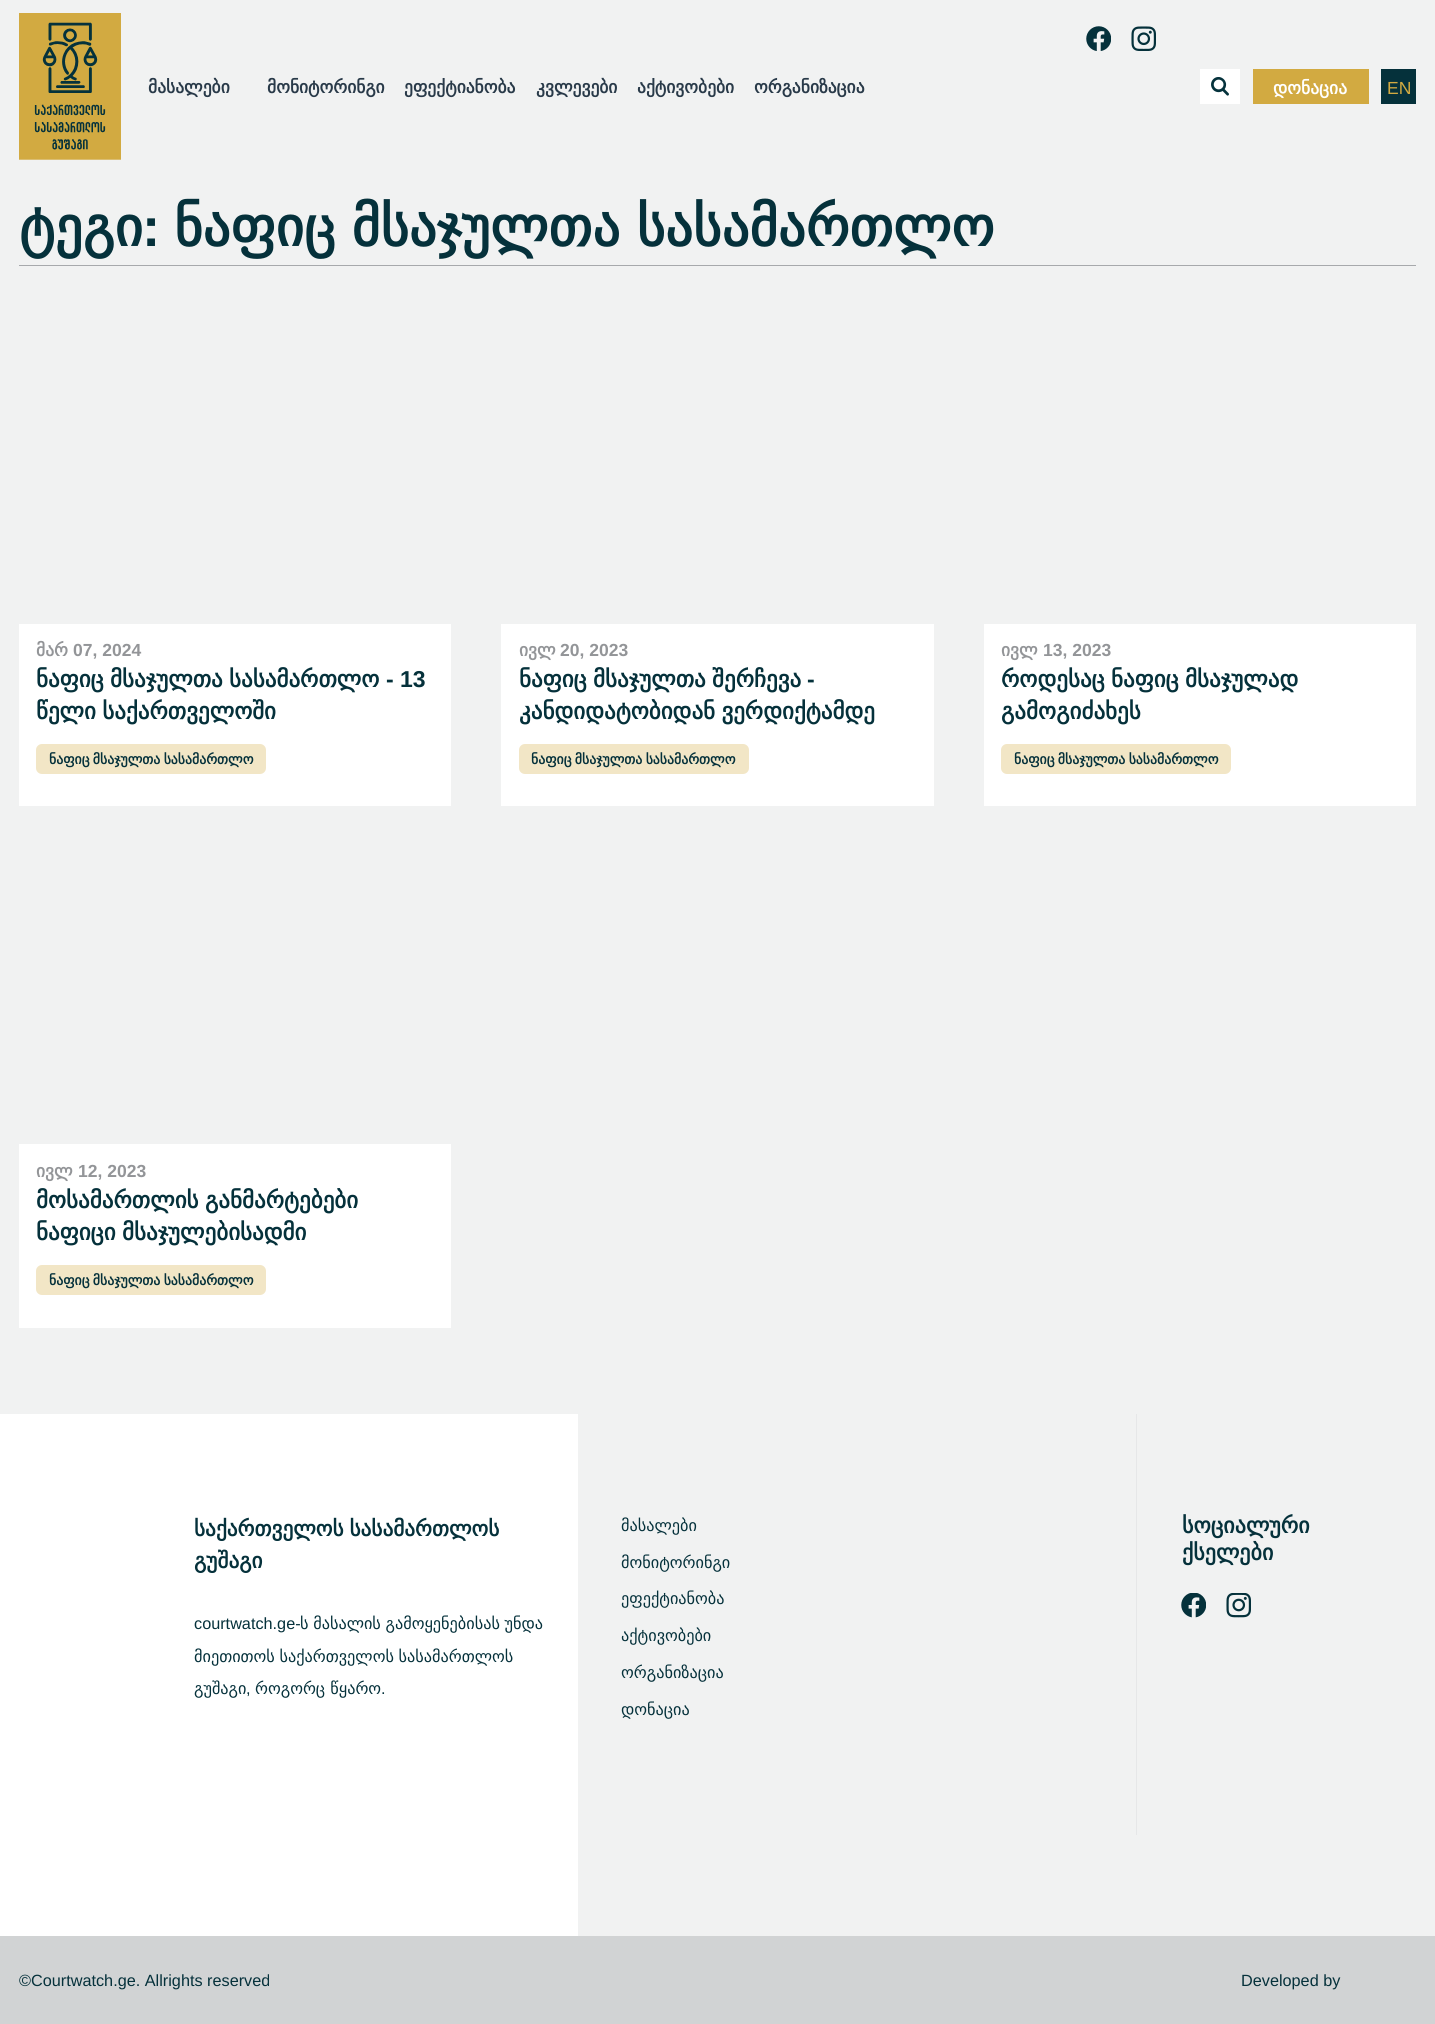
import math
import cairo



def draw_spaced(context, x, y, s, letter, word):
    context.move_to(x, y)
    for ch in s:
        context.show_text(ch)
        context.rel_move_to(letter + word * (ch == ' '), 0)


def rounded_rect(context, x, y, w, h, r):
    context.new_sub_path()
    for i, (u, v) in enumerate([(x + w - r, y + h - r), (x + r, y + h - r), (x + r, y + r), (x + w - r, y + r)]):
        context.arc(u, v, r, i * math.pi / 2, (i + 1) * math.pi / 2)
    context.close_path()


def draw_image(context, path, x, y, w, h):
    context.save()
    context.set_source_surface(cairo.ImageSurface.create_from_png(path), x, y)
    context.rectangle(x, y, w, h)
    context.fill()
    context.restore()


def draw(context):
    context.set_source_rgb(241 / 255, 242 / 255, 242 / 255)
    context.paint()
    draw_image(context, "images/1.png", 19, 13, 102, 147)
    draw_image(context, "images/2.png", 1086, 26, 25, 25)
    draw_image(context, "images/3.png", 1131, 26, 25, 25)
    context.set_source_rgb(1, 1, 1)
    context.rectangle(1200, 69, 40, 35)
    context.fill()
    draw_image(context, "images/4.png", 1211, 77, 18, 19)
    context.set_source_rgb(210 / 255, 170 / 255, 65 / 255)
    context.rectangle(1253, 69, 116, 35)
    context.fill()
    context.set_source_rgb(5 / 255, 49 / 255, 59 / 255)
    context.rectangle(1381, 69, 35, 35)
    context.fill()
    context.set_source_rgb(167 / 255, 169 / 255, 172 / 255)
    context.rectangle(19, 265, 1397, 1)
    context.fill()
    context.set_source_rgb(1, 1, 1)
    context.rectangle(19, 624, 432, 182)
    context.fill()
    context.set_source_rgb(242 / 255, 230 / 255, 198 / 255)
    rounded_rect(context, 36, 744, 230, 30, 6)
    context.fill()
    context.set_source_rgb(1, 1, 1)
    context.rectangle(501, 624, 433, 182)
    context.fill()
    context.set_source_rgb(242 / 255, 230 / 255, 198 / 255)
    rounded_rect(context, 519, 744, 230, 30, 6)
    context.fill()
    context.set_source_rgb(1, 1, 1)
    context.rectangle(984, 624, 432, 182)
    context.fill()
    context.set_source_rgb(242 / 255, 230 / 255, 198 / 255)
    rounded_rect(context, 1001, 744, 230, 30, 6)
    context.fill()
    context.set_source_rgb(1, 1, 1)
    context.rectangle(19, 1144, 432, 184)
    context.fill()
    context.set_source_rgb(242 / 255, 230 / 255, 198 / 255)
    rounded_rect(context, 36, 1265, 230, 30, 6)
    context.fill()
    context.set_source_rgb(1, 1, 1)
    context.rectangle(0, 1414, 578, 522)
    context.fill()
    context.set_source_rgb(230 / 255, 231 / 255, 232 / 255)
    context.rectangle(1136, 1414, 1, 421)
    context.fill()
    draw_image(context, "images/5.png", 1181, 1593, 25, 25)
    draw_image(context, "images/6.png", 1226, 1593, 25, 25)
    context.set_source_rgb(209 / 255, 211 / 255, 212 / 255)
    context.rectangle(0, 1936, 1435, 88)
    context.fill()
    context.select_font_face("DejaVu Sans", cairo.FontSlant.NORMAL, cairo.FontWeight.BOLD)
    context.set_font_size(17.5)
    context.set_source_rgb(41 / 255, 58 / 255, 73 / 255)
    context.move_to(148, 93)
    context.show_text("მასალები")
    context.move_to(267, 93)
    context.show_text("მონიტორინგი")
    context.move_to(404, 93)
    context.show_text("ეფექტიანობა")
    context.move_to(536, 93)
    context.show_text("კვლევები")
    context.move_to(637, 93)
    context.show_text("აქტივობები")
    context.move_to(754, 93)
    context.show_text("ორგანიზაცია")
    context.set_source_rgb(1, 1, 1)
    context.move_to(1273, 94)
    context.show_text("დონაცია")
    context.select_font_face("Liberation Sans")
    context.set_source_rgb(210 / 255, 170 / 255, 65 / 255)
    context.move_to(1387, 94)
    context.show_text("EN")
    context.select_font_face("DejaVu Sans", cairo.FontSlant.NORMAL, cairo.FontWeight.BOLD)
    context.set_font_size(54.75)
    context.set_source_rgb(5 / 255, 49 / 255, 59 / 255)
    context.move_to(19, 246)
    context.show_text("ტეგი")
    context.select_font_face("Liberation Sans", cairo.FontSlant.NORMAL, cairo.FontWeight.BOLD)
    context.move_to(142, 246)
    context.show_text(":")
    context.select_font_face("DejaVu Sans", cairo.FontSlant.NORMAL, cairo.FontWeight.BOLD)
    draw_spaced(context, 174, 246, "ნაფიც მსაჯულთა სასამართლო", 0, -1)
    context.set_font_size(17.5)
    context.set_source_rgb(147 / 255, 149 / 255, 152 / 255)
    context.move_to(36, 656)
    context.show_text("მარ")
    context.select_font_face("Liberation Sans", cairo.FontSlant.NORMAL, cairo.FontWeight.BOLD)
    context.move_to(73, 656)
    context.show_text("07, 2024")
    context.select_font_face("DejaVu Sans", cairo.FontSlant.NORMAL, cairo.FontWeight.BOLD)
    context.set_font_size(23)
    context.set_source_rgb(5 / 255, 49 / 255, 59 / 255)
    context.move_to(36, 687)
    context.show_text("ნაფიც")
    context.move_to(110, 687)
    context.show_text("მსაჯულთა")
    context.move_to(229, 687)
    context.show_text("სასამართლო")
    context.select_font_face("Liberation Sans", cairo.FontSlant.NORMAL, cairo.FontWeight.BOLD)
    context.move_to(386, 687)
    context.show_text("- 13")
    context.select_font_face("DejaVu Sans", cairo.FontSlant.NORMAL, cairo.FontWeight.BOLD)
    draw_spaced(context, 36, 719, "წელი საქართველოში", 0, -1)
    context.set_font_size(13.75)
    draw_spaced(context, 49, 764, "ნაფიც მსაჯულთა სასამართლო", 0, -1)
    context.set_font_size(17.5)
    context.set_source_rgb(147 / 255, 149 / 255, 152 / 255)
    context.move_to(519, 656)
    context.show_text("ივლ")
    context.select_font_face("Liberation Sans", cairo.FontSlant.NORMAL, cairo.FontWeight.BOLD)
    context.move_to(560, 656)
    context.show_text("20, 2023")
    context.select_font_face("DejaVu Sans", cairo.FontSlant.NORMAL, cairo.FontWeight.BOLD)
    context.set_font_size(23)
    context.set_source_rgb(5 / 255, 49 / 255, 59 / 255)
    draw_spaced(context, 519, 687, "ნაფიც მსაჯულთა შერჩევა", 0, -1)
    context.select_font_face("Liberation Sans", cairo.FontSlant.NORMAL, cairo.FontWeight.BOLD)
    context.move_to(807, 687)
    context.show_text("-")
    context.select_font_face("DejaVu Sans", cairo.FontSlant.NORMAL, cairo.FontWeight.BOLD)
    draw_spaced(context, 519, 719, "კანდიდატობიდან ვერდიქტამდე", 0, -1)
    context.set_font_size(13.75)
    draw_spaced(context, 531, 764, "ნაფიც მსაჯულთა სასამართლო", 0, -1)
    context.set_font_size(17.5)
    context.set_source_rgb(147 / 255, 149 / 255, 152 / 255)
    context.move_to(1001, 656)
    context.show_text("ივლ")
    context.select_font_face("Liberation Sans", cairo.FontSlant.NORMAL, cairo.FontWeight.BOLD)
    context.move_to(1043, 656)
    context.show_text("13, 2023")
    context.select_font_face("DejaVu Sans", cairo.FontSlant.NORMAL, cairo.FontWeight.BOLD)
    context.set_font_size(23)
    context.set_source_rgb(5 / 255, 49 / 255, 59 / 255)
    draw_spaced(context, 1001, 687, "როდესაც ნაფიც მსაჯულად", 0, -1)
    context.move_to(1001, 719)
    context.show_text("გამოგიძახეს")
    context.set_font_size(13.75)
    draw_spaced(context, 1014, 764, "ნაფიც მსაჯულთა სასამართლო", 0, -1)
    context.set_font_size(17.5)
    context.set_source_rgb(147 / 255, 149 / 255, 152 / 255)
    context.move_to(36, 1177)
    context.show_text("ივლ")
    context.select_font_face("Liberation Sans", cairo.FontSlant.NORMAL, cairo.FontWeight.BOLD)
    context.move_to(78, 1177)
    context.show_text("12, 2023")
    context.select_font_face("DejaVu Sans", cairo.FontSlant.NORMAL, cairo.FontWeight.BOLD)
    context.set_font_size(23)
    context.set_source_rgb(5 / 255, 49 / 255, 59 / 255)
    draw_spaced(context, 36, 1208, "მოსამართლის განმარტებები", 0, -1)
    draw_spaced(context, 36, 1240, "ნაფიცი მსაჯულებისადმი", 0, -1)
    context.set_font_size(13.75)
    draw_spaced(context, 49, 1285, "ნაფიც მსაჯულთა სასამართლო", 0, -1)
    context.set_font_size(21.25)
    draw_spaced(context, 194, 1536, "საქართველოს სასამართლოს", 0, -1)
    context.move_to(194, 1568)
    context.show_text("გუშაგი")
    context.select_font_face("Liberation Sans")
    context.set_font_size(16.25)
    context.move_to(194, 1629)
    context.show_text("courtwatch.ge-")
    context.select_font_face("DejaVu Sans")
    draw_spaced(context, 300, 1629, "ს მასალის გამოყენებისას უნდა", 0, -0.5)
    draw_spaced(context, 194, 1662, "მიეთითოს საქართველოს სასამართლოს", 0, -0.5)
    context.move_to(194, 1694)
    context.show_text("გუშაგი")
    context.select_font_face("Liberation Sans")
    context.move_to(246, 1694)
    context.show_text(",")
    context.select_font_face("DejaVu Sans")
    context.move_to(255, 1694)
    context.show_text("როგორც წყარო")
    context.select_font_face("Liberation Sans")
    context.move_to(381, 1694)
    context.show_text(".")
    context.select_font_face("DejaVu Sans")
    context.move_to(621, 1531)
    context.show_text("მასალები")
    context.move_to(621, 1568)
    context.show_text("მონიტორინგი")
    context.move_to(621, 1604)
    context.show_text("ეფექტიანობა")
    context.move_to(621, 1641)
    context.show_text("აქტივობები")
    context.move_to(621, 1678)
    context.show_text("ორგანიზაცია")
    context.move_to(621, 1715)
    context.show_text("დონაცია")
    context.select_font_face("DejaVu Sans", cairo.FontSlant.NORMAL, cairo.FontWeight.BOLD)
    context.set_font_size(22)
    context.move_to(1182, 1533)
    context.show_text("სოციალური")
    context.move_to(1182, 1560)
    context.show_text("ქსელები")
    context.select_font_face("Liberation Sans")
    context.set_font_size(16.25)
    context.move_to(19, 1986)
    context.show_text("©Courtwatch.ge. Allrights reserved")
    context.move_to(1241, 1986)
    context.show_text("Developed by")


surface = cairo.ImageSurface(cairo.Format.RGB24, 1435, 2024)
context = cairo.Context(surface)
options = cairo.FontOptions()
options.set_hint_metrics(cairo.HintMetrics.OFF)
options.set_hint_style(cairo.HintStyle.NONE)
context.set_font_options(options)
context.set_miter_limit(4)
draw(context)
surface.write_to_png("out.png")
